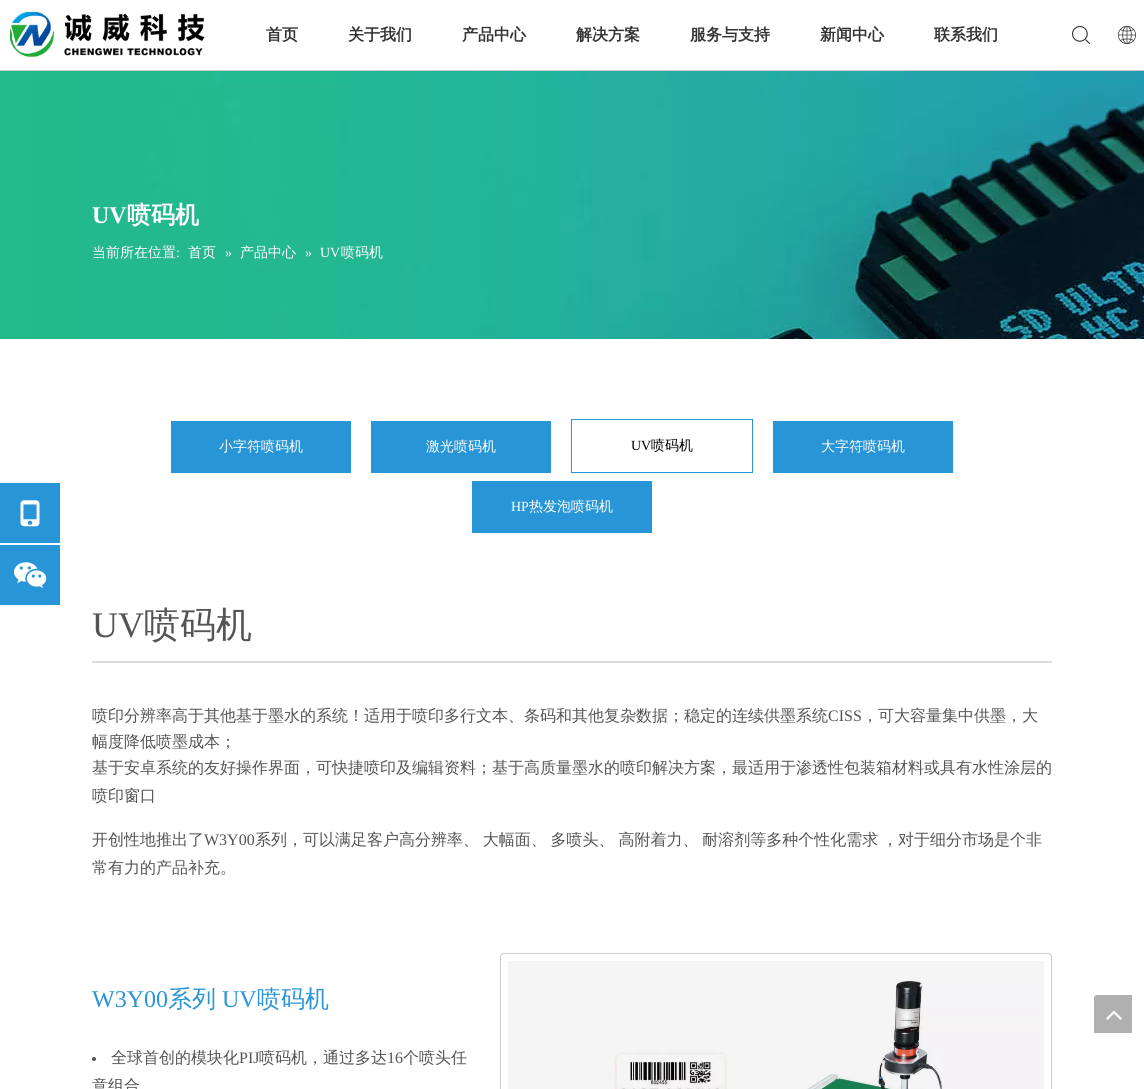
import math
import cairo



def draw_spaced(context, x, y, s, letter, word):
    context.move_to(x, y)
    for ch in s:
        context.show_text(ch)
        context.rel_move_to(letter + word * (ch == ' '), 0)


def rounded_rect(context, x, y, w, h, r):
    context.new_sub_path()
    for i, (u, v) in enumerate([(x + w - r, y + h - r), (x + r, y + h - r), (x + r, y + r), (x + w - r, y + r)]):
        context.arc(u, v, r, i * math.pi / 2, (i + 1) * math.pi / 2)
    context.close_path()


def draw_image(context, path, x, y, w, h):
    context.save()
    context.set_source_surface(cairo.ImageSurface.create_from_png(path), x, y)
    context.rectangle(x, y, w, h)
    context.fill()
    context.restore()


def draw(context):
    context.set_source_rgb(1, 1, 1)
    context.paint()
    context.set_source_rgb(201 / 255, 201 / 255, 201 / 255)
    context.rectangle(0, 70, 1144, 1)
    context.fill()
    draw_image(context, "images/1.png", 10, 12, 195, 45)
    draw_image(context, "images/2.png", 1072, 26, 18, 18)
    draw_image(context, "images/3.png", 1118, 26, 18, 18)
    context.set_source_rgb(40 / 255, 149 / 255, 215 / 255)
    context.rectangle(0, 483, 60, 60)
    context.fill()
    draw_image(context, "images/4.png", 20, 500, 20, 27)
    context.rectangle(0, 545, 60, 60)
    context.fill()
    draw_image(context, "images/5.png", 14, 562, 33, 27)
    draw_image(context, "images/6.png", 0, 71, 1144, 268)
    context.rectangle(171, 421, 180, 52)
    context.fill()
    context.rectangle(371, 421, 180, 52)
    context.fill()
    context.rectangle(571.5, 419.5, 181, 53)
    context.set_line_width(1)
    context.stroke()
    context.rectangle(773, 421, 180, 52)
    context.fill()
    context.rectangle(472, 481, 180, 52)
    context.fill()
    context.set_source_rgb(221 / 255, 221 / 255, 221 / 255)
    context.rectangle(92, 661, 960, 2)
    context.fill()
    context.set_source_rgb(84 / 255, 84 / 255, 84 / 255)
    context.arc(94, 1059, 2, 0, 2 * math.pi)
    context.fill()
    rounded_rect(context, 500.5, 953.5, 551, 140, 3.5)
    context.set_source_rgb(204 / 255, 204 / 255, 204 / 255)
    context.stroke()
    draw_image(context, "images/7.png", 508, 961, 536, 128)
    draw_image(context, "images/8.png", 1094, 995, 38, 38)
    context.select_font_face("WenQuanYi Zen Hei", cairo.FontSlant.NORMAL, cairo.FontWeight.BOLD)
    context.set_font_size(16)
    context.set_source_rgb(51 / 255, 51 / 255, 51 / 255)
    context.move_to(266, 40)
    context.show_text("首页")
    context.move_to(348, 40)
    context.show_text("关于我们")
    context.move_to(462, 40)
    context.show_text("产品中心")
    context.move_to(576, 40)
    context.show_text("解决方案")
    context.move_to(690, 40)
    context.show_text("服务与支持")
    context.move_to(820, 40)
    context.show_text("新闻中心")
    context.move_to(934, 40)
    context.show_text("联系我们")
    context.select_font_face("Liberation Serif", cairo.FontSlant.NORMAL, cairo.FontWeight.BOLD)
    context.set_font_size(24)
    context.set_source_rgb(1, 1, 1)
    context.move_to(92, 223)
    context.show_text("UV")
    context.select_font_face("WenQuanYi Zen Hei", cairo.FontSlant.NORMAL, cairo.FontWeight.BOLD)
    context.move_to(127, 223)
    context.show_text("喷码机")
    context.select_font_face("WenQuanYi Zen Hei Medium")
    context.set_font_size(14)
    context.move_to(92, 257)
    context.show_text("当前所在位置")
    context.select_font_face("Liberation Serif")
    context.move_to(176, 257)
    context.show_text(":")
    context.select_font_face("WenQuanYi Zen Hei Medium")
    context.move_to(188, 257)
    context.show_text("首页")
    context.select_font_face("Liberation Serif")
    context.move_to(225, 257)
    context.show_text("»")
    context.select_font_face("WenQuanYi Zen Hei Medium")
    context.move_to(240, 257)
    context.show_text("产品中心")
    context.select_font_face("Liberation Serif")
    context.move_to(305, 257)
    context.show_text("»")
    context.move_to(320, 257)
    context.show_text("UV")
    context.select_font_face("WenQuanYi Zen Hei Medium")
    context.move_to(341, 257)
    context.show_text("喷码机")
    context.move_to(219, 451)
    context.show_text("小字符喷码机")
    context.move_to(426, 451)
    context.show_text("激光喷码机")
    context.select_font_face("Liberation Serif")
    context.set_source_rgb(0, 0, 0)
    context.move_to(631, 450)
    context.show_text("UV")
    context.select_font_face("WenQuanYi Zen Hei Medium")
    context.move_to(651, 450)
    context.show_text("喷码机")
    context.set_source_rgb(1, 1, 1)
    context.move_to(821, 451)
    context.show_text("大字符喷码机")
    context.select_font_face("Liberation Serif")
    context.move_to(511, 511)
    context.show_text("HP")
    context.select_font_face("WenQuanYi Zen Hei Medium")
    context.move_to(529, 511)
    context.show_text("热发泡喷码机")
    context.select_font_face("Liberation Serif")
    context.set_font_size(36)
    context.set_source_rgb(84 / 255, 84 / 255, 84 / 255)
    context.move_to(92, 637)
    context.show_text("UV")
    context.select_font_face("WenQuanYi Zen Hei Medium")
    context.move_to(144, 637)
    context.show_text("喷码机")
    context.set_font_size(16)
    context.move_to(92, 721)
    context.show_text("喷印分辨率高于其他基于墨水的系统！适用于喷印多行文本、条码和其他复杂数据；稳定的连续供墨系统")
    context.select_font_face("Liberation Serif")
    context.move_to(828, 721)
    context.show_text("CISS")
    context.select_font_face("WenQuanYi Zen Hei Medium")
    context.move_to(862, 721)
    context.show_text("，可大容量集中供墨，大")
    context.move_to(92, 747)
    context.show_text("幅度降低喷墨成本；")
    context.move_to(92, 773)
    context.show_text("基于安卓系统的友好操作界面，可快捷喷印及编辑资料；基于高质量墨水的喷印解决方案，最适用于渗透性包装箱材料或具有水性涂层的")
    context.move_to(92, 801)
    context.show_text("喷印窗口")
    context.move_to(92, 845)
    context.show_text("开创性地推出了")
    context.select_font_face("Liberation Serif")
    context.move_to(204, 845)
    context.show_text("W3Y00")
    context.select_font_face("WenQuanYi Zen Hei Medium")
    draw_spaced(context, 255, 845, "系列，可以满足客户高分辨率、 大幅面、 多喷头、 高附着力、 耐溶剂等多种个性化需求 ，对于细分市场是个非", 0, -1)
    context.move_to(92, 873)
    context.show_text("常有力的产品补充。")
    context.select_font_face("Liberation Serif")
    context.set_font_size(24)
    context.set_source_rgb(40 / 255, 149 / 255, 215 / 255)
    context.move_to(92, 1007)
    context.show_text("W3Y00")
    context.select_font_face("WenQuanYi Zen Hei Medium")
    context.move_to(168, 1007)
    context.show_text("系列")
    context.select_font_face("Liberation Serif")
    context.move_to(222, 1007)
    context.show_text("UV")
    context.select_font_face("WenQuanYi Zen Hei Medium")
    context.move_to(257, 1007)
    context.show_text("喷码机")
    context.set_font_size(16)
    context.set_source_rgb(84 / 255, 84 / 255, 84 / 255)
    context.move_to(111, 1063)
    context.show_text("全球首创的模块化")
    context.select_font_face("Liberation Serif")
    context.move_to(239, 1063)
    context.show_text("PIJ")
    context.select_font_face("WenQuanYi Zen Hei Medium")
    context.move_to(259, 1063)
    context.show_text("喷码机，通过多达")
    context.select_font_face("Liberation Serif")
    context.move_to(387, 1063)
    context.show_text("16")
    context.select_font_face("WenQuanYi Zen Hei Medium")
    context.move_to(403, 1063)
    context.show_text("个喷头任")
    context.move_to(92, 1091)
    context.show_text("意组合")


surface = cairo.ImageSurface(cairo.Format.RGB24, 1144, 1089)
context = cairo.Context(surface)
options = cairo.FontOptions()
options.set_hint_metrics(cairo.HintMetrics.OFF)
options.set_hint_style(cairo.HintStyle.NONE)
context.set_font_options(options)
context.set_miter_limit(4)
draw(context)
surface.write_to_png("out.png")
